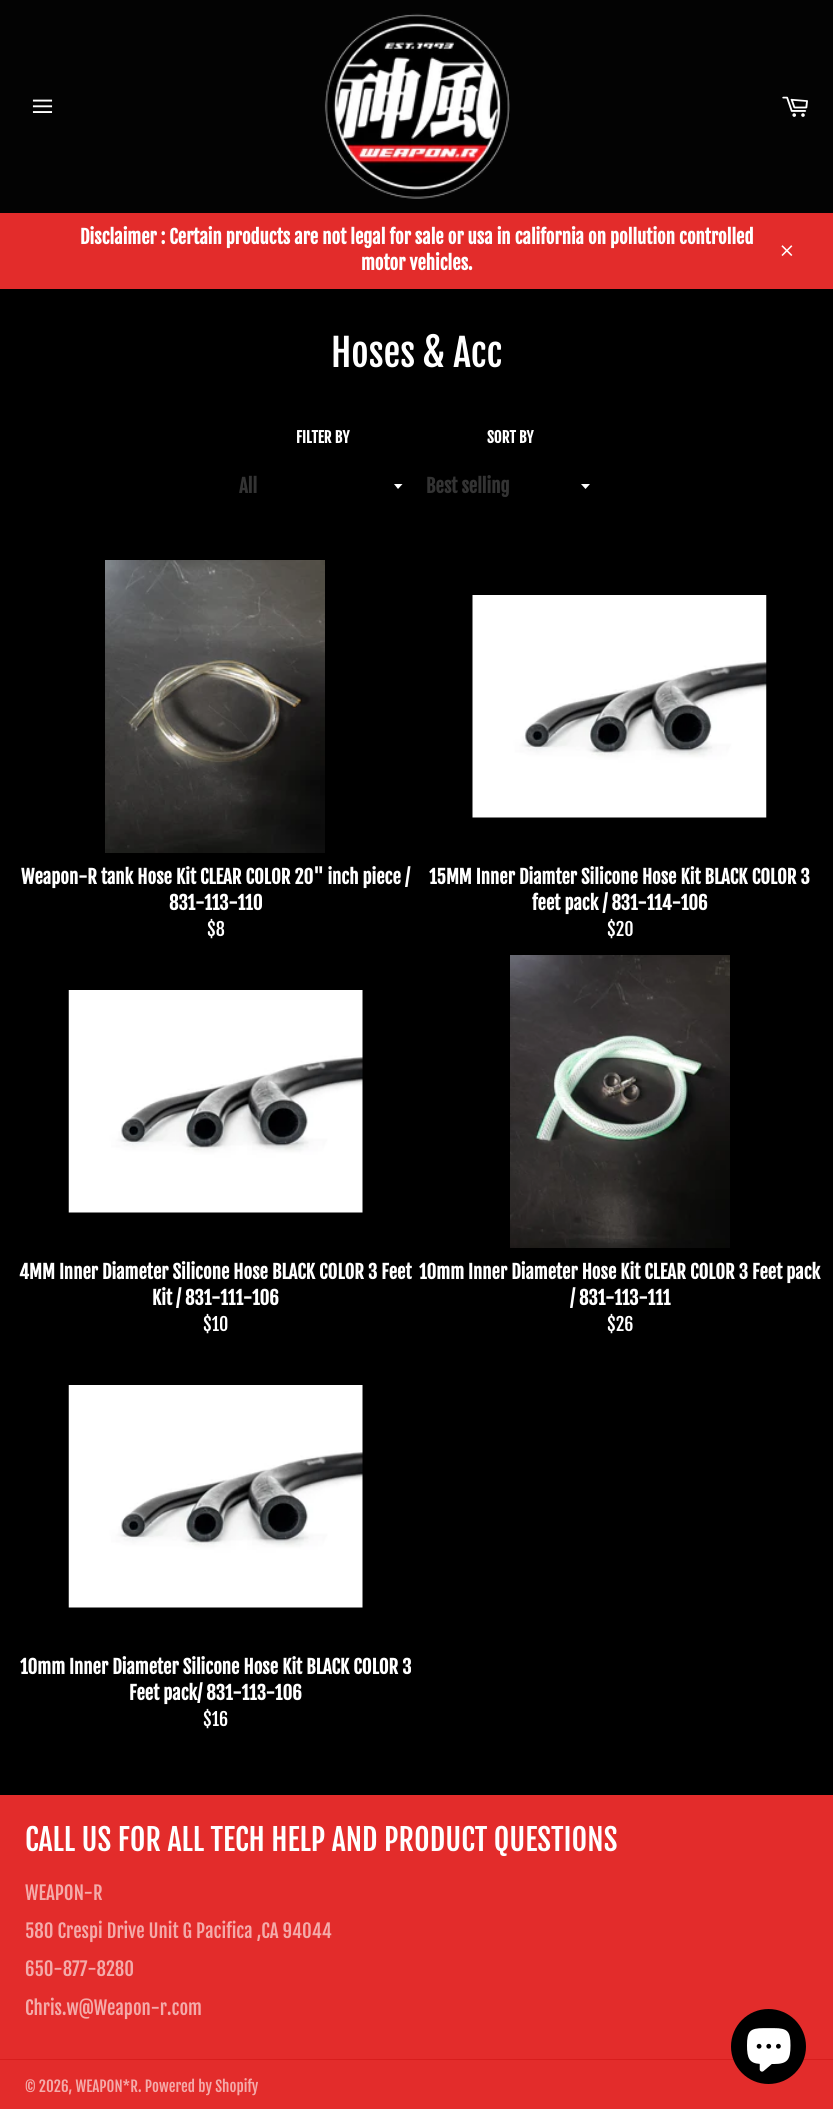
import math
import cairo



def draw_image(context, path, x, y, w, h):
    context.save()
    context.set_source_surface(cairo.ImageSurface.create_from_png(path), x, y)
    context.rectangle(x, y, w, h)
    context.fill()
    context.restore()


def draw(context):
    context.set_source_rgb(0, 0, 0)
    context.paint()
    context.set_source_rgb(3 / 255, 3 / 255, 3 / 255)
    context.rectangle(0, 0, 833, 213)
    context.fill()
    draw_image(context, "images/1.png", 32, 99, 21, 14)
    draw_image(context, "images/2.png", 324, 13, 186, 186)
    draw_image(context, "images/3.png", 782, 96, 26, 21)
    context.set_source_rgb(227 / 255, 44 / 255, 43 / 255)
    context.rectangle(0, 213, 833, 76)
    context.fill()
    draw_image(context, "images/4.png", 781, 245, 12, 11)
    context.set_source_rgb(1, 1, 1)
    context.new_path()
    context.move_to(394, 484)
    context.line_to(398, 489)
    context.line_to(402.5, 484)
    context.close_path()
    context.fill()
    context.new_path()
    context.move_to(581, 484)
    context.line_to(585.5, 489)
    context.line_to(590, 484)
    context.close_path()
    context.fill()
    draw_image(context, "images/5.png", 105, 560, 220, 293)
    draw_image(context, "images/6.png", 472, 595, 295, 223)
    draw_image(context, "images/7.png", 68, 990, 295, 223)
    draw_image(context, "images/8.png", 510, 955, 220, 293)
    draw_image(context, "images/7.png", 68, 1385, 295, 223)
    context.set_source_rgb(227 / 255, 44 / 255, 43 / 255)
    context.rectangle(0, 1795, 833, 314)
    context.fill()
    context.set_source_rgb(216 / 255, 30 / 255, 29 / 255)
    context.rectangle(0, 2059, 833, 1)
    context.fill()
    context.set_source_rgb(0, 0, 0)
    context.arc(768.5, 2046.5, 37.5, 0, 2 * math.pi)
    context.fill()
    draw_image(context, "images/9.png", 747, 2028, 44, 44)
    context.select_font_face("Fjalla One", cairo.FontSlant.NORMAL, cairo.FontWeight.BOLD)
    context.set_font_size(18.75)
    context.set_source_rgb(1, 1, 1)
    context.move_to(80, 244)
    context.show_text("Disclaimer : Certain products are not legal for sale or usa in california on pollution controlled")
    context.move_to(361, 270)
    context.show_text("motor vehicles.")
    context.select_font_face("Fjalla One")
    context.set_font_size(37.5)
    context.move_to(331, 367)
    context.show_text("Hoses & Acc")
    context.select_font_face("Fjalla One", cairo.FontSlant.NORMAL, cairo.FontWeight.BOLD)
    context.set_font_size(15)
    context.move_to(296, 443)
    context.show_text("FILTER BY")
    context.set_font_size(18.75)
    context.set_source_rgb(51 / 255, 51 / 255, 51 / 255)
    context.move_to(239, 493)
    context.show_text("All")
    context.set_font_size(15)
    context.set_source_rgb(1, 1, 1)
    context.move_to(487, 443)
    context.show_text("SORT BY")
    context.set_font_size(18.75)
    context.set_source_rgb(51 / 255, 51 / 255, 51 / 255)
    context.move_to(426, 493)
    context.show_text("Best selling")
    context.set_source_rgb(1, 1, 1)
    context.move_to(21, 884)
    context.show_text("Weapon-R tank Hose Kit CLEAR COLOR 20\" inch piece /")
    context.move_to(169, 910)
    context.show_text("831-113-110")
    context.select_font_face("Fjalla One")
    context.set_font_size(18)
    context.move_to(207, 936)
    context.show_text("$8")
    context.select_font_face("Fjalla One", cairo.FontSlant.NORMAL, cairo.FontWeight.BOLD)
    context.set_font_size(18.75)
    context.move_to(429, 884)
    context.show_text("15MM Inner Diamter Silicone Hose Kit BLACK COLOR 3")
    context.move_to(532, 910)
    context.show_text("feet pack / 831-114-106")
    context.select_font_face("Fjalla One")
    context.set_font_size(18)
    context.move_to(607, 936)
    context.show_text("$20")
    context.select_font_face("Fjalla One", cairo.FontSlant.NORMAL, cairo.FontWeight.BOLD)
    context.set_font_size(18.75)
    context.move_to(19, 1279)
    context.show_text("4MM Inner Diameter Silicone Hose BLACK COLOR 3 Feet")
    context.move_to(152, 1305)
    context.show_text("Kit / 831-111-106")
    context.select_font_face("Fjalla One")
    context.set_font_size(18)
    context.move_to(203, 1331)
    context.show_text("$10")
    context.select_font_face("Fjalla One", cairo.FontSlant.NORMAL, cairo.FontWeight.BOLD)
    context.set_font_size(18.75)
    context.move_to(419, 1279)
    context.show_text("10mm Inner Diameter Hose Kit CLEAR COLOR 3 Feet pack")
    context.move_to(570, 1305)
    context.show_text("/ 831-113-111")
    context.select_font_face("Fjalla One")
    context.set_font_size(18)
    context.move_to(607, 1331)
    context.show_text("$26")
    context.select_font_face("Fjalla One", cairo.FontSlant.NORMAL, cairo.FontWeight.BOLD)
    context.set_font_size(18.75)
    context.move_to(20, 1674)
    context.show_text("10mm Inner Diameter Silicone Hose Kit BLACK COLOR 3")
    context.move_to(129, 1700)
    context.show_text("Feet pack/ 831-113-106")
    context.select_font_face("Fjalla One")
    context.set_font_size(18)
    context.move_to(203, 1726)
    context.show_text("$16")
    context.set_font_size(30)
    context.move_to(25, 1851)
    context.show_text("CALL US FOR ALL TECH HELP AND PRODUCT QUESTIONS")
    context.set_font_size(18.75)
    context.set_source_rgb(244 / 255, 171 / 255, 170 / 255)
    context.move_to(25, 1900)
    context.show_text("WEAPON-R")
    context.move_to(25, 1938)
    context.show_text("580 Crespi Drive Unit G Pacifica ,CA 94044")
    context.move_to(25, 1976)
    context.show_text("650-877-8280")
    context.move_to(25, 2015)
    context.show_text("Chris.w@Weapon-r.com")
    context.set_font_size(15)
    context.move_to(25, 2092)
    context.show_text("© 2026, WEAPON*R. Powered by Shopify")


surface = cairo.ImageSurface(cairo.Format.RGB24, 833, 2109)
context = cairo.Context(surface)
options = cairo.FontOptions()
options.set_hint_metrics(cairo.HintMetrics.OFF)
options.set_hint_style(cairo.HintStyle.NONE)
context.set_font_options(options)
context.set_miter_limit(4)
draw(context)
surface.write_to_png("out.png")
